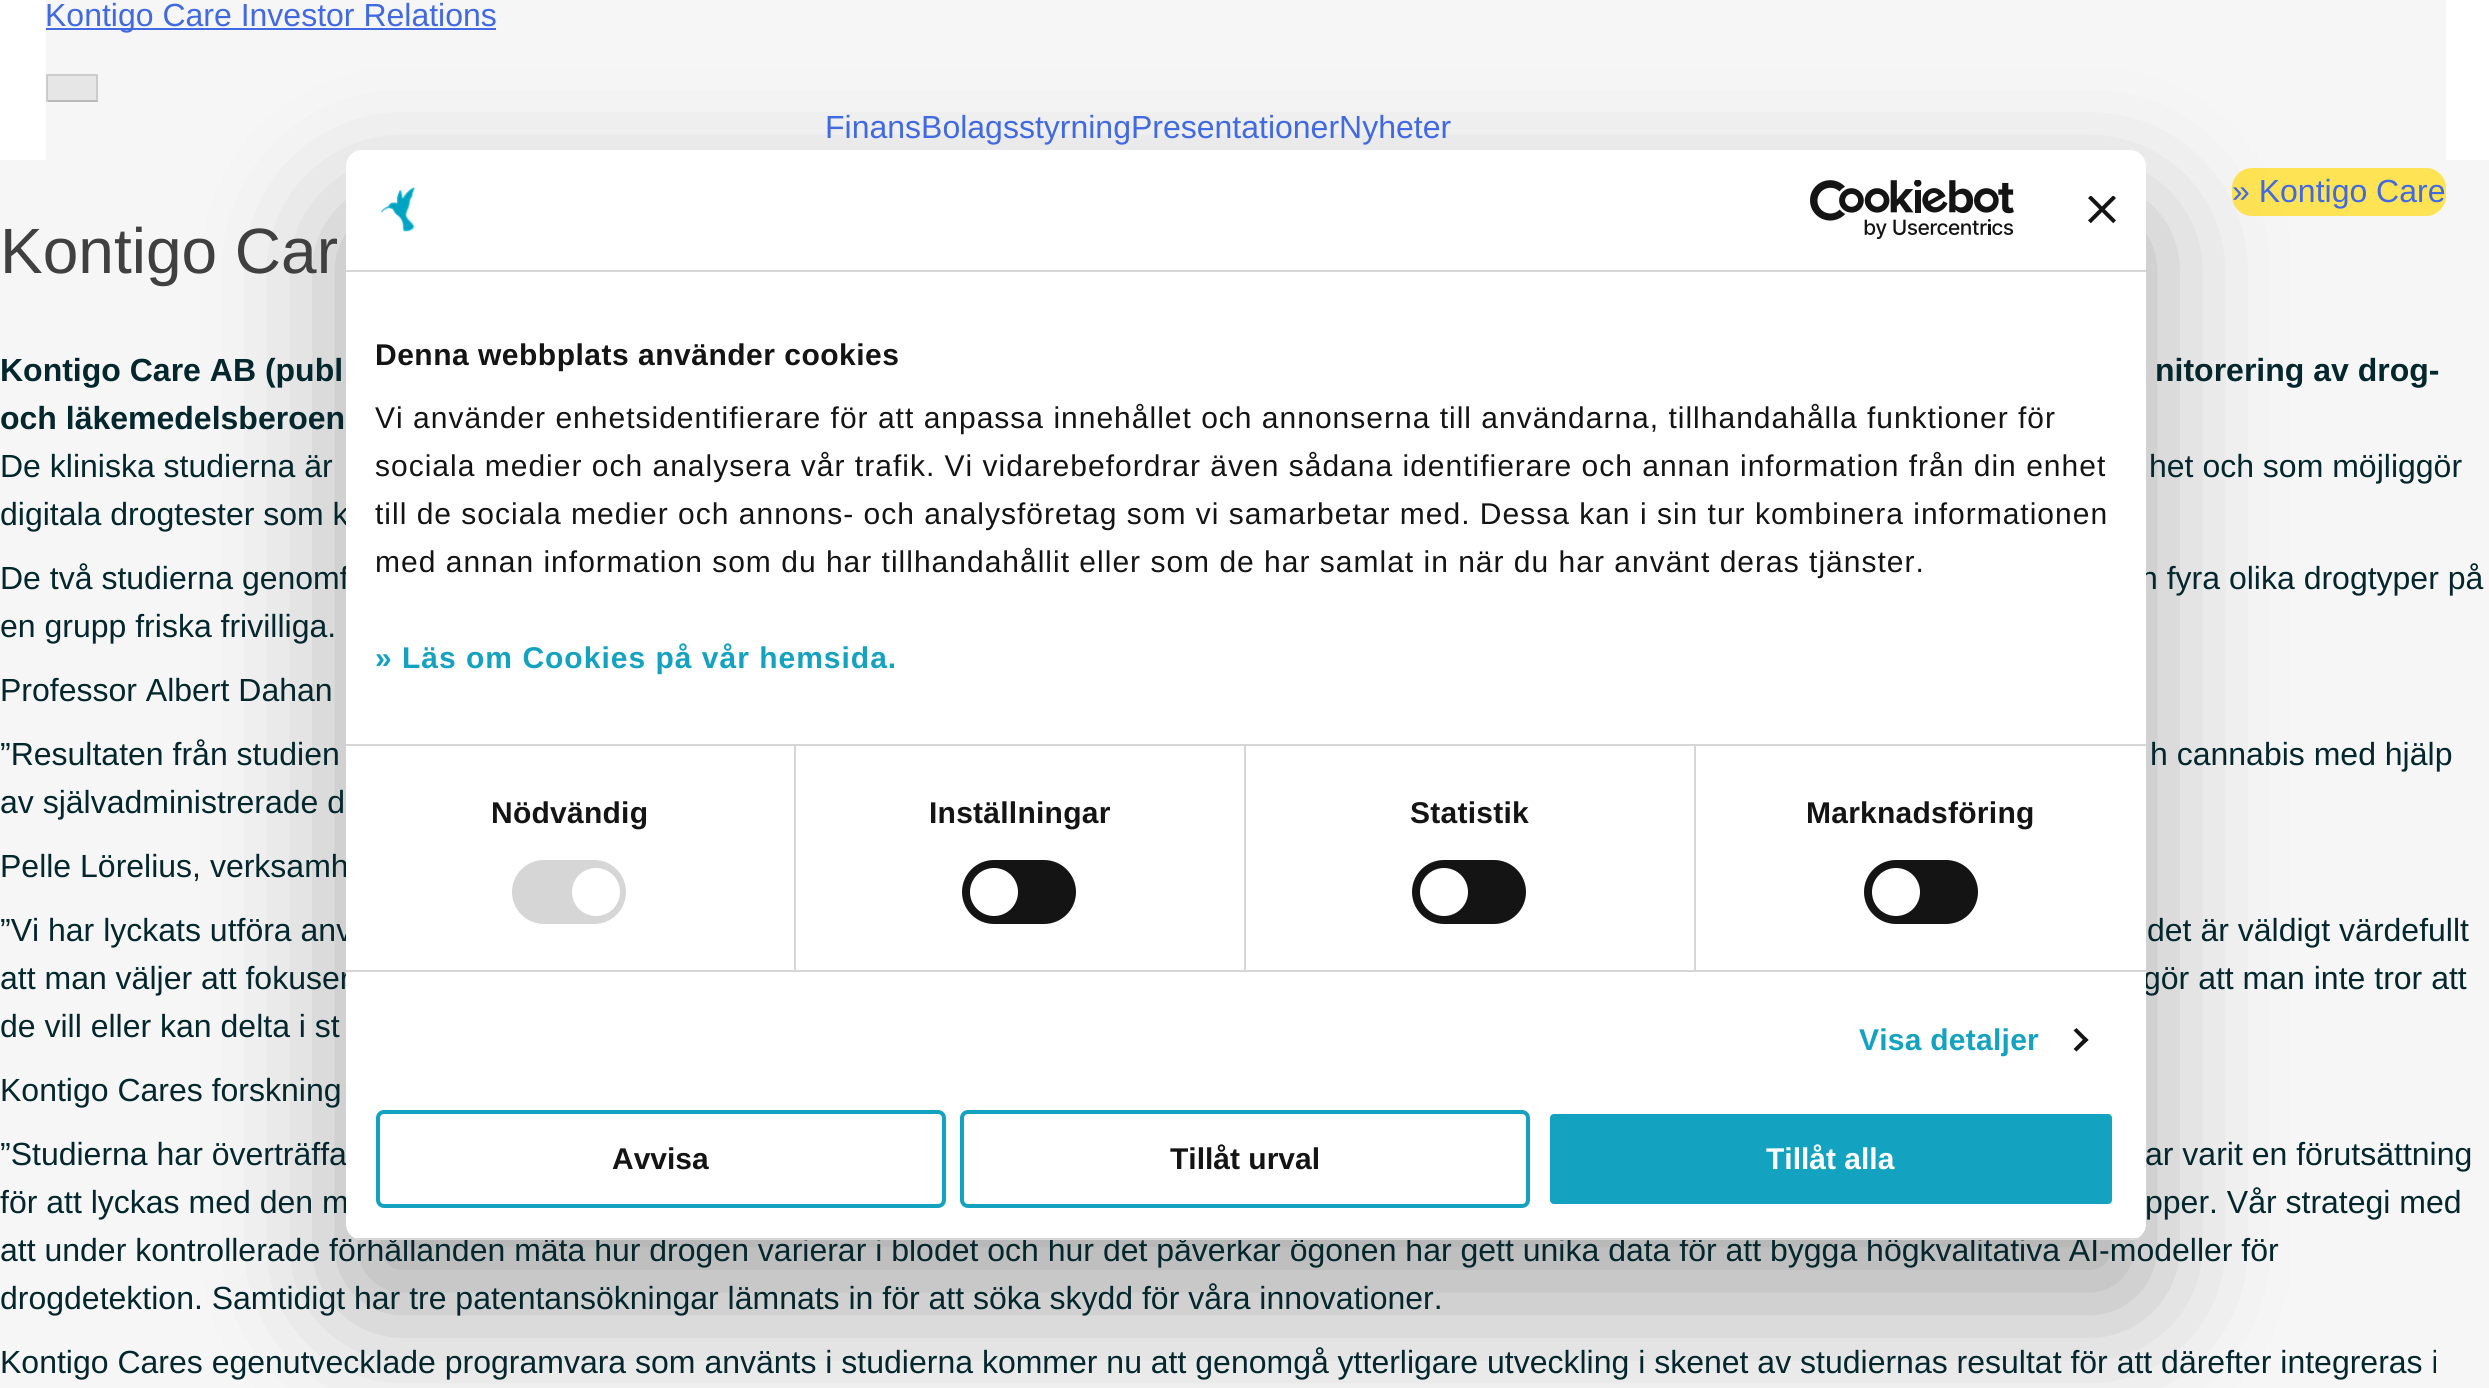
import math
import cairo



def draw_spaced(context, x, y, s, letter, word):
    context.move_to(x, y)
    for ch in s:
        context.show_text(ch)
        context.rel_move_to(letter + word * (ch == ' '), 0)


def rounded_rect(context, x, y, w, h, r):
    context.new_sub_path()
    for i, (u, v) in enumerate([(x + w - r, y + h - r), (x + r, y + h - r), (x + r, y + r), (x + w - r, y + r)]):
        context.arc(u, v, r, i * math.pi / 2, (i + 1) * math.pi / 2)
    context.close_path()


def draw_shadow(context, x, y, w, h, r, blur, alpha):
    context.push_group_with_content(cairo.Content.ALPHA)
    context.set_operator(cairo.Operator.SOURCE)
    for i in range(15, -16, -2):
        e = blur * i / 6
        if min(w, h) + 2 * e > 0:
            context.set_source_rgba(0, 0, 0, alpha * math.erfc((i - 1) / 8.5) / 2)
            rounded_rect(context, x - e, y - e, w + 2 * e, h + 2 * e, max(0, min(r + e + blur * .6, min(w, h) / 2 + e)))
            context.fill()
    context.mask(context.pop_group())


def draw_image(context, path, x, y, w, h):
    context.save()
    context.set_source_surface(cairo.ImageSurface.create_from_png(path), x, y)
    context.rectangle(x, y, w, h)
    context.fill()
    context.restore()


def draw(context):
    context.set_source_rgb(1, 1, 1)
    context.paint()
    context.set_source_rgb(246 / 255, 246 / 255, 246 / 255)
    context.rectangle(46, 0, 2400, 160)
    context.fill()
    context.set_source_rgb(65 / 255, 105 / 255, 225 / 255)
    context.rectangle(46, 28, 450, 2)
    context.fill()
    context.set_source_rgb(230 / 255, 230 / 255, 230 / 255)
    context.rectangle(48, 76, 48, 24)
    context.fill()
    context.set_source_rgb(204 / 255, 204 / 255, 204 / 255)
    context.rectangle(46, 74, 52, 2)
    context.fill()
    context.rectangle(96, 74, 2, 28)
    context.fill()
    context.set_source_rgb(187 / 255, 187 / 255, 187 / 255)
    context.rectangle(46, 100, 52, 2)
    context.fill()
    context.set_source_rgb(204 / 255, 204 / 255, 204 / 255)
    context.rectangle(46, 74, 2, 28)
    context.fill()
    context.set_source_rgb(246 / 255, 246 / 255, 246 / 255)
    context.rectangle(0, 160, 2489, 1228)
    context.fill()
    context.set_source_rgb(254 / 255, 228 / 255, 84 / 255)
    rounded_rect(context, 2232, 168, 214, 48, 20)
    context.fill()
    context.set_source_rgb(0, 0, 0)
    draw_shadow(context, 346, 214, 1800, 1090, 16, 68, 0.3)
    context.select_font_face("Liberation Sans")
    context.set_font_size(32)
    context.set_source_rgb(65 / 255, 105 / 255, 225 / 255)
    context.move_to(45, 26)
    context.show_text("Kontigo Care Investor Relations")
    context.move_to(825, 138)
    context.show_text("FinansBolagsstyrningPresentationerNyheter")
    context.move_to(2232, 202)
    context.show_text("» Kontigo Care")
    context.set_font_size(64)
    context.set_source_rgb(64 / 255, 64 / 255, 64 / 255)
    context.move_to(0, 273)
    context.show_text("Kontigo Car")
    context.select_font_face("Liberation Sans", cairo.FontSlant.NORMAL, cairo.FontWeight.BOLD)
    context.set_font_size(32)
    context.set_source_rgb(4 / 255, 39 / 255, 45 / 255)
    context.move_to(0, 381)
    context.show_text("Kontigo Care AB (publ")
    context.move_to(2155, 381)
    context.show_text("nitorering av drog-")
    context.move_to(0, 429)
    context.show_text("och läkemedelsberoen")
    context.select_font_face("Liberation Sans")
    context.move_to(0, 477)
    context.show_text("De kliniska studierna är")
    context.move_to(2149, 477)
    context.show_text("het och som möjliggör")
    context.move_to(0, 525)
    context.show_text("digitala drogtester som k")
    context.move_to(0, 589)
    context.show_text("De två studierna genomf")
    context.move_to(2140, 589)
    context.show_text("n fyra olika drogtyper på")
    context.move_to(0, 637)
    context.show_text("en grupp friska frivilliga.")
    context.move_to(0, 701)
    context.show_text("Professor Albert Dahan")
    context.move_to(0, 765)
    context.show_text("”Resultaten från studien")
    context.move_to(2150, 765)
    context.show_text("h cannabis med hjälp")
    context.move_to(0, 813)
    context.show_text("av självadministrerade d")
    context.move_to(0, 877)
    context.show_text("Pelle Lörelius, verksamh")
    context.move_to(0, 941)
    context.show_text("”Vi har lyckats utföra anv")
    context.move_to(2147, 941)
    context.show_text("det är väldigt värdefullt")
    context.move_to(0, 989)
    context.show_text("att man väljer att fokuser")
    context.move_to(2143, 989)
    context.show_text("gör att man inte tror att")
    context.move_to(0, 1037)
    context.show_text("de vill eller kan delta i st")
    context.move_to(0, 1101)
    context.show_text("Kontigo Cares forskning")
    context.move_to(0, 1165)
    context.show_text("”Studierna har överträffa")
    context.move_to(2145, 1165)
    context.show_text("ar varit en förutsättning")
    context.move_to(0, 1213)
    context.show_text("för att lyckas med den m")
    context.move_to(2145, 1213)
    context.show_text("pper. Vår strategi med")
    context.move_to(0, 1261)
    context.show_text("att under kontrollerade förhållanden mäta hur drogen varierar i blodet och hur det påverkar ögonen har gett unika data för att bygga högkvalitativa AI-modeller för")
    context.move_to(0, 1309)
    context.show_text("drogdetektion. Samtidigt har tre patentansökningar lämnats in för att söka skydd för våra innovationer.")
    context.move_to(0, 1373)
    context.show_text("Kontigo Cares egenutvecklade programvara som använts i studierna kommer nu att genomgå ytterligare utveckling i skenet av studiernas resultat för att därefter integreras i")
    context.set_source_rgb(1, 1, 1)
    rounded_rect(context, 346, 150, 1800, 1090, 16)
    context.fill()
    context.set_source_rgb(214 / 255, 214 / 255, 214 / 255)
    context.rectangle(346, 270, 1800, 2)
    context.fill()
    draw_image(context, "images/1.png", 380, 187, 35, 45)
    draw_image(context, "images/2.png", 1810, 180, 204, 60)
    draw_image(context, "images/3.png", 2088, 196, 28, 28)
    context.rectangle(346, 744, 1800, 2)
    context.fill()
    context.select_font_face("Liberation Sans", cairo.FontSlant.NORMAL, cairo.FontWeight.BOLD)
    context.set_font_size(30)
    context.set_source_rgb(20 / 255, 20 / 255, 20 / 255)
    draw_spaced(context, 375, 365, "Denna webbplats använder cookies", 0.5, 0)
    context.select_font_face("Liberation Sans")
    draw_spaced(context, 375, 428, "Vi använder enhetsidentifierare för att anpassa innehållet och annonserna till användarna, tillhandahålla funktioner för", 1, 0)
    draw_spaced(context, 375, 476, "sociala medier och analysera vår trafik. Vi vidarebefordrar även sådana identifierare och annan information från din enhet", 1, 0)
    draw_spaced(context, 375, 524, "till de sociala medier och annons- och analysföretag som vi samarbetar med. Dessa kan i sin tur kombinera informationen", 1, 0)
    draw_spaced(context, 375, 572, "med annan information som du har tillhandahållit eller som de har samlat in när du har använt deras tjänster.", 1, 0)
    context.select_font_face("Liberation Sans", cairo.FontSlant.NORMAL, cairo.FontWeight.BOLD)
    context.set_source_rgb(19 / 255, 162 / 255, 191 / 255)
    draw_spaced(context, 375, 668, "» Läs om Cookies på vår hemsida.", 1, 0)
    context.set_source_rgb(214 / 255, 214 / 255, 214 / 255)
    context.rectangle(346, 970, 1800, 2)
    context.fill()
    context.rectangle(794, 746, 2, 224)
    context.fill()
    context.set_source_rgb(20 / 255, 20 / 255, 20 / 255)
    draw_spaced(context, 491, 823, "Nödvändig", 0.25, 0)
    context.set_source_rgb(214 / 255, 214 / 255, 214 / 255)
    rounded_rect(context, 512, 860, 114, 64, 32)
    context.fill()
    context.set_source_rgb(1, 1, 1)
    context.arc(596, 892, 24, 0, 2 * math.pi)
    context.fill()
    context.set_source_rgb(214 / 255, 214 / 255, 214 / 255)
    context.rectangle(1244, 746, 2, 224)
    context.fill()
    context.set_source_rgb(20 / 255, 20 / 255, 20 / 255)
    draw_spaced(context, 929, 823, "Inställningar", 0.25, 0)
    rounded_rect(context, 962, 860, 114, 64, 32)
    context.fill()
    context.set_source_rgb(1, 1, 1)
    context.arc(994, 892, 24, 0, 2 * math.pi)
    context.fill()
    context.set_source_rgb(214 / 255, 214 / 255, 214 / 255)
    context.rectangle(1694, 746, 2, 224)
    context.fill()
    context.set_source_rgb(20 / 255, 20 / 255, 20 / 255)
    draw_spaced(context, 1410, 823, "Statistik", 0.25, 0)
    rounded_rect(context, 1412, 860, 114, 64, 32)
    context.fill()
    context.set_source_rgb(1, 1, 1)
    context.arc(1444, 892, 24, 0, 2 * math.pi)
    context.fill()
    context.set_source_rgb(20 / 255, 20 / 255, 20 / 255)
    draw_spaced(context, 1806, 823, "Marknadsföring", 0.25, 0)
    rounded_rect(context, 1864, 860, 114, 64, 32)
    context.fill()
    context.set_source_rgb(1, 1, 1)
    context.arc(1896, 892, 24, 0, 2 * math.pi)
    context.fill()
    context.set_source_rgb(19 / 255, 162 / 255, 191 / 255)
    draw_spaced(context, 1859, 1050, "Visa detaljer", 0.25, 0)
    context.set_source_rgb(20 / 255, 20 / 255, 20 / 255)
    context.new_path()
    context.move_to(2076.5, 1028)
    context.line_to(2088.5, 1040)
    context.line_to(2085.5, 1042.5)
    context.line_to(2073.5, 1030.5)
    context.close_path()
    context.fill()
    context.new_path()
    context.move_to(2085.5, 1037)
    context.line_to(2088.5, 1040)
    context.line_to(2076.5, 1051.5)
    context.line_to(2073.5, 1049)
    context.close_path()
    context.fill()
    context.save()
    rounded_rect(context, 346, 150, 1800, 1090, 16)
    context.clip()
    context.set_source_rgb(214 / 255, 214 / 255, 214 / 255)
    context.rectangle(346, 1238, 1800, 2)
    context.fill()
    context.restore()
    rounded_rect(context, 378, 1112, 566, 94, 6)
    context.set_source_rgb(19 / 255, 162 / 255, 191 / 255)
    context.set_line_width(4)
    context.stroke()
    context.set_source_rgb(20 / 255, 20 / 255, 20 / 255)
    context.move_to(612, 1169)
    context.show_text("Avvisa")
    rounded_rect(context, 962, 1112, 566, 94, 6)
    context.set_source_rgb(19 / 255, 162 / 255, 191 / 255)
    context.stroke()
    context.set_source_rgb(20 / 255, 20 / 255, 20 / 255)
    context.move_to(1170, 1169)
    context.show_text("Tillåt urval")
    context.set_source_rgb(19 / 255, 162 / 255, 191 / 255)
    rounded_rect(context, 1548, 1112, 566, 94, 6)
    context.fill_preserve()
    context.set_source_rgb(1, 1, 1)
    context.stroke()
    context.move_to(1766, 1169)
    context.show_text("Tillåt alla")


surface = cairo.ImageSurface(cairo.Format.RGB24, 2489, 1388)
context = cairo.Context(surface)
options = cairo.FontOptions()
options.set_hint_metrics(cairo.HintMetrics.OFF)
options.set_hint_style(cairo.HintStyle.NONE)
context.set_font_options(options)
context.set_miter_limit(4)
draw(context)
surface.write_to_png("out.png")
